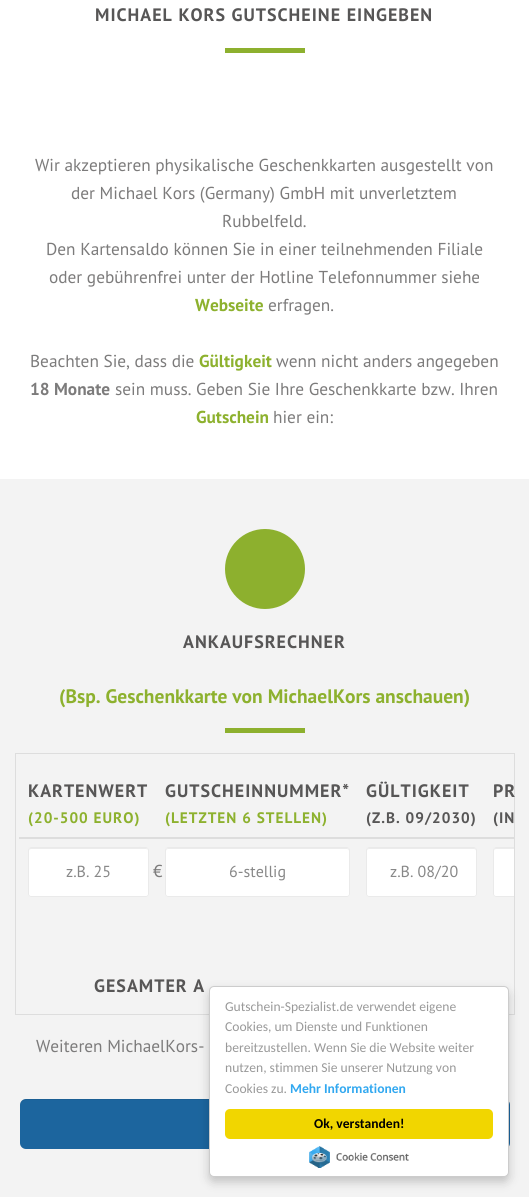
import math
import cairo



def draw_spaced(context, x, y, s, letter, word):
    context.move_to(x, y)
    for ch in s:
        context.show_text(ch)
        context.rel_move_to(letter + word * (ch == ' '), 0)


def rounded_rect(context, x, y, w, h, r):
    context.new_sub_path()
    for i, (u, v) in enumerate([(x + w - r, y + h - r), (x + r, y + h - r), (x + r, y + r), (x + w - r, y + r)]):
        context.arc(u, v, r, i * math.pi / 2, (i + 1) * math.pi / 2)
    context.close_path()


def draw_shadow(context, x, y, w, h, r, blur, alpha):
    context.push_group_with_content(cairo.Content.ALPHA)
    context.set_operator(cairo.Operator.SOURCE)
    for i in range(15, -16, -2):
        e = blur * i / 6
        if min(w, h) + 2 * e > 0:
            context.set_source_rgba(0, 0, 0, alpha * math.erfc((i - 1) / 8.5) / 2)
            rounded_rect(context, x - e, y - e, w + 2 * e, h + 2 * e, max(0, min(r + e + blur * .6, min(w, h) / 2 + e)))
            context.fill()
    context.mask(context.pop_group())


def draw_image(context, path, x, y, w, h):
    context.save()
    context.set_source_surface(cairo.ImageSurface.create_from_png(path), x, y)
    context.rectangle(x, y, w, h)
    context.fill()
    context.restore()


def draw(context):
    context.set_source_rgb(1, 1, 1)
    context.paint()
    context.set_source_rgb(141 / 255, 176 / 255, 46 / 255)
    context.rectangle(225, 48, 80, 5)
    context.fill()
    context.set_source_rgb(243 / 255, 243 / 255, 243 / 255)
    context.rectangle(0, 479, 529, 718)
    context.fill()
    context.set_source_rgb(141 / 255, 176 / 255, 46 / 255)
    context.arc(265, 569, 40, 0, 2 * math.pi)
    context.fill()
    context.rectangle(225, 728, 80, 5)
    context.fill()
    context.rectangle(15.5, 753.5, 499, 261)
    context.set_source_rgb(221 / 255, 221 / 255, 221 / 255)
    context.set_line_width(1)
    context.stroke()
    context.rectangle(19, 837, 495, 2)
    context.fill()
    context.set_source_rgb(1, 1, 1)
    rounded_rect(context, 28, 847, 121, 50, 3)
    context.fill()
    context.set_source_rgb(236 / 255, 236 / 255, 236 / 255)
    context.new_path()
    context.move_to(31, 849)
    context.line_to(146, 849)
    context.curve_to(147, 849, 148, 850, 148, 851)
    context.curve_to(148, 844, 133, 848, 127, 848)
    context.line_to(30, 848)
    context.curve_to(29, 849, 29, 850, 29, 851)
    context.curve_to(29, 850, 30, 849, 31, 849)
    context.close_path()
    context.fill()
    rounded_rect(context, 28.5, 847.5, 120, 49, 2.5)
    context.set_source_rgb(234 / 255, 234 / 255, 234 / 255)
    context.stroke()
    context.set_source_rgb(1, 1, 1)
    rounded_rect(context, 165, 847, 185, 50, 3)
    context.fill()
    context.set_source_rgb(236 / 255, 236 / 255, 236 / 255)
    context.new_path()
    context.move_to(168, 849)
    context.line_to(347, 849)
    context.curve_to(348, 849, 349, 850, 349, 851)
    context.line_to(349, 850)
    context.curve_to(349, 849, 348, 848, 347, 848)
    context.line_to(168, 848)
    context.curve_to(167, 848, 166, 849, 166, 850)
    context.line_to(166, 851)
    context.curve_to(166, 850, 167, 849, 168, 849)
    context.close_path()
    context.fill()
    rounded_rect(context, 165.5, 847.5, 184, 49, 2.5)
    context.set_source_rgb(234 / 255, 234 / 255, 234 / 255)
    context.stroke()
    context.set_source_rgb(1, 1, 1)
    rounded_rect(context, 366, 847, 111, 50, 3)
    context.fill()
    context.set_source_rgb(236 / 255, 236 / 255, 236 / 255)
    context.new_path()
    context.move_to(369, 849)
    context.line_to(474, 849)
    context.curve_to(475, 849, 476, 850, 476, 851)
    context.curve_to(476, 850, 476, 848, 474, 848)
    context.line_to(369, 848)
    context.curve_to(367, 848, 367, 850, 367, 851)
    context.curve_to(367, 850, 368, 849, 369, 849)
    context.close_path()
    context.fill()
    rounded_rect(context, 366.5, 847.5, 110, 49, 2.5)
    context.set_source_rgb(234 / 255, 234 / 255, 234 / 255)
    context.stroke()
    context.set_source_rgb(1, 1, 1)
    context.new_path()
    context.move_to(496, 847)
    context.line_to(514, 847)
    context.line_to(514, 897)
    context.line_to(496, 897)
    context.curve_to(494.5, 897, 493, 895.5, 493, 894)
    context.line_to(493, 850)
    context.curve_to(493, 848.5, 494.5, 847, 496, 847)
    context.close_path()
    context.fill()
    context.save()
    context.rectangle(16, 754, 498, 260)
    context.clip()
    context.set_source_rgb(236 / 255, 236 / 255, 236 / 255)
    context.new_path()
    context.move_to(496, 849)
    context.line_to(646, 849)
    context.curve_to(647, 849, 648, 850, 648, 851)
    context.curve_to(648, 842, 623, 848, 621, 848)
    context.line_to(495, 848)
    context.curve_to(494, 849, 494, 850, 494, 851)
    context.curve_to(494, 850, 495, 849, 496, 849)
    context.close_path()
    context.fill()
    rounded_rect(context, 493.5, 847.5, 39, 49, 2.5)
    context.set_source_rgb(234 / 255, 234 / 255, 234 / 255)
    context.stroke()
    context.restore()
    context.set_source_rgb(28 / 255, 101 / 255, 158 / 255)
    rounded_rect(context, 20, 1099, 490, 50, 6)
    context.fill()
    context.set_source_rgba(0, 0, 0, 0.07)
    context.new_path()
    context.move_to(26, 1100)
    context.line_to(504, 1100)
    context.curve_to(507, 1100, 510, 1103, 510, 1106)
    context.curve_to(510, 1102, 508, 1099, 504, 1099)
    context.line_to(26, 1099)
    context.curve_to(22, 1099, 20, 1102, 20, 1106)
    context.curve_to(20, 1103, 23, 1100, 26, 1100)
    context.close_path()
    context.fill()
    context.set_source_rgb(0, 0, 0)
    draw_shadow(context, 209, 991, 300, 191, 5, 5, 0.2)
    context.set_source_rgb(1, 1, 1)
    rounded_rect(context, 209.5, 986.5, 299, 190, 4.5)
    context.fill_preserve()
    context.set_source_rgb(204 / 255, 204 / 255, 204 / 255)
    context.stroke()
    context.set_source_rgb(241 / 255, 214 / 255, 0)
    rounded_rect(context, 225, 1109, 268, 30, 5)
    context.fill()
    draw_image(context, "images/1.png", 309, 1146, 100, 22)
    context.select_font_face("PT Sans", cairo.FontSlant.NORMAL, cairo.FontWeight.BOLD)
    context.set_font_size(18)
    context.set_source_rgb(87 / 255, 86 / 255, 86 / 255)
    draw_spaced(context, 95, 21, "MICHAEL KORS GUTSCHEINE EINGEBEN", 1, 0)
    context.select_font_face("PT Sans")
    context.set_font_size(17.3)
    context.set_source_rgb(124 / 255, 123 / 255, 123 / 255)
    context.move_to(35, 171)
    context.show_text("Wir akzeptieren physikalische Geschenkkarten ausgestellt von")
    context.move_to(71, 199)
    context.show_text("der Michael Kors (Germany) GmbH mit unverletztem")
    context.move_to(222, 227)
    context.show_text("Rubbelfeld.")
    context.move_to(46, 255)
    context.show_text("Den Kartensaldo können Sie in einer teilnehmenden Filiale")
    context.move_to(49, 283)
    context.show_text("oder gebührenfrei unter der Hotline Telefonnummer siehe")
    context.select_font_face("PT Sans", cairo.FontSlant.NORMAL, cairo.FontWeight.BOLD)
    context.set_source_rgb(141 / 255, 177 / 255, 46 / 255)
    context.move_to(195, 311)
    context.show_text("Webseite")
    context.select_font_face("PT Sans")
    context.set_source_rgb(124 / 255, 123 / 255, 123 / 255)
    context.move_to(268, 311)
    context.show_text("erfragen.")
    context.move_to(30, 367)
    context.show_text("Beachten Sie, dass die")
    context.select_font_face("PT Sans", cairo.FontSlant.NORMAL, cairo.FontWeight.BOLD)
    context.set_source_rgb(141 / 255, 177 / 255, 46 / 255)
    context.move_to(199, 367)
    context.show_text("Gültigkeit")
    context.select_font_face("PT Sans")
    context.set_source_rgb(124 / 255, 123 / 255, 123 / 255)
    context.move_to(276, 367)
    context.show_text("wenn nicht anders angegeben")
    context.select_font_face("PT Sans", cairo.FontSlant.NORMAL, cairo.FontWeight.BOLD)
    context.move_to(30, 395)
    context.show_text("18 Monate")
    context.select_font_face("PT Sans")
    context.move_to(115, 395)
    context.show_text("sein muss. Geben Sie Ihre Geschenkkarte bzw. Ihren")
    context.select_font_face("PT Sans", cairo.FontSlant.NORMAL, cairo.FontWeight.BOLD)
    context.set_source_rgb(141 / 255, 177 / 255, 46 / 255)
    context.move_to(196, 423)
    context.show_text("Gutschein")
    context.select_font_face("PT Sans")
    context.set_source_rgb(124 / 255, 123 / 255, 123 / 255)
    context.move_to(273, 423)
    context.show_text("hier ein:")
    context.select_font_face("PT Sans", cairo.FontSlant.NORMAL, cairo.FontWeight.BOLD)
    context.set_font_size(18)
    context.set_source_rgb(87 / 255, 86 / 255, 86 / 255)
    draw_spaced(context, 183, 648, "ANKAUFSRECHNER", 1, 0)
    context.set_font_size(19.5)
    context.set_source_rgb(141 / 255, 177 / 255, 46 / 255)
    context.move_to(59, 703)
    context.show_text("(Bsp. Geschenkkarte von MichaelKors anschauen)")
    context.set_font_size(18)
    context.set_source_rgb(87 / 255, 86 / 255, 86 / 255)
    draw_spaced(context, 28, 797, "KARTENWERT", 1, 0)
    context.set_font_size(15.25)
    context.set_source_rgb(141 / 255, 177 / 255, 46 / 255)
    draw_spaced(context, 28, 823, "(20-500 EURO)", 1, 0)
    context.set_font_size(18)
    context.set_source_rgb(87 / 255, 86 / 255, 86 / 255)
    draw_spaced(context, 165, 797, "GUTSCHEINNUMMER*", 1, 0)
    context.set_font_size(15.25)
    context.set_source_rgb(141 / 255, 177 / 255, 46 / 255)
    draw_spaced(context, 165, 823, "(LETZTEN 6 STELLEN)", 1, 0)
    context.set_font_size(18)
    context.set_source_rgb(87 / 255, 86 / 255, 86 / 255)
    draw_spaced(context, 366, 797, "GÜLTIGKEIT", 1, 0)
    context.set_font_size(15.25)
    draw_spaced(context, 366, 823, "(Z.B. 09/2030)", 1, 0)
    context.set_font_size(18)
    draw_spaced(context, 493, 797, "PR", 1, 0)
    context.set_font_size(15.25)
    draw_spaced(context, 493, 823, "(IN", 1, 0)
    context.select_font_face("PT Sans")
    context.set_font_size(16)
    context.set_source_rgb(136 / 255, 136 / 255, 136 / 255)
    context.move_to(66, 877)
    context.show_text("z.B. 25")
    context.set_font_size(17.3)
    context.set_source_rgb(124 / 255, 123 / 255, 123 / 255)
    context.move_to(153, 877)
    context.show_text("€")
    context.set_font_size(16)
    context.set_source_rgb(136 / 255, 136 / 255, 136 / 255)
    context.move_to(229, 877)
    context.show_text("6-stellig")
    context.move_to(390, 877)
    context.show_text("z.B. 08/20")
    context.select_font_face("PT Sans", cairo.FontSlant.NORMAL, cairo.FontWeight.BOLD)
    context.set_font_size(18)
    context.set_source_rgb(87 / 255, 86 / 255, 86 / 255)
    draw_spaced(context, 94, 992, "GESAMTER A", 1, 0)
    context.select_font_face("PT Sans")
    context.set_font_size(17.3)
    context.set_source_rgb(124 / 255, 123 / 255, 123 / 255)
    context.move_to(36, 1052)
    context.show_text("Weiteren MichaelKors-")
    context.select_font_face("Carlito")
    context.set_font_size(13.6)
    context.set_source_rgb(153 / 255, 153 / 255, 153 / 255)
    context.move_to(225, 1011)
    context.show_text("Gutschein-Spezialist.de verwendet eigene")
    context.move_to(225, 1031)
    context.show_text("Cookies, um Dienste und Funktionen")
    context.move_to(225, 1052)
    context.show_text("bereitzustellen. Wenn Sie die Website weiter")
    context.move_to(225, 1072)
    context.show_text("nutzen, stimmen Sie unserer Nutzung von")
    context.move_to(225, 1093)
    context.show_text("Cookies zu.")
    context.select_font_face("Carlito", cairo.FontSlant.NORMAL, cairo.FontWeight.BOLD)
    context.set_source_rgb(49 / 255, 168 / 255, 240 / 255)
    context.move_to(290, 1093)
    context.show_text("Mehr Informationen")
    context.set_source_rgb(0, 0, 0)
    context.move_to(314, 1128)
    context.show_text("Ok, verstanden!")


surface = cairo.ImageSurface(cairo.Format.RGB24, 529, 1197)
context = cairo.Context(surface)
options = cairo.FontOptions()
options.set_hint_metrics(cairo.HintMetrics.OFF)
options.set_hint_style(cairo.HintStyle.NONE)
context.set_font_options(options)
context.set_miter_limit(4)
draw(context)
surface.write_to_png("out.png")
